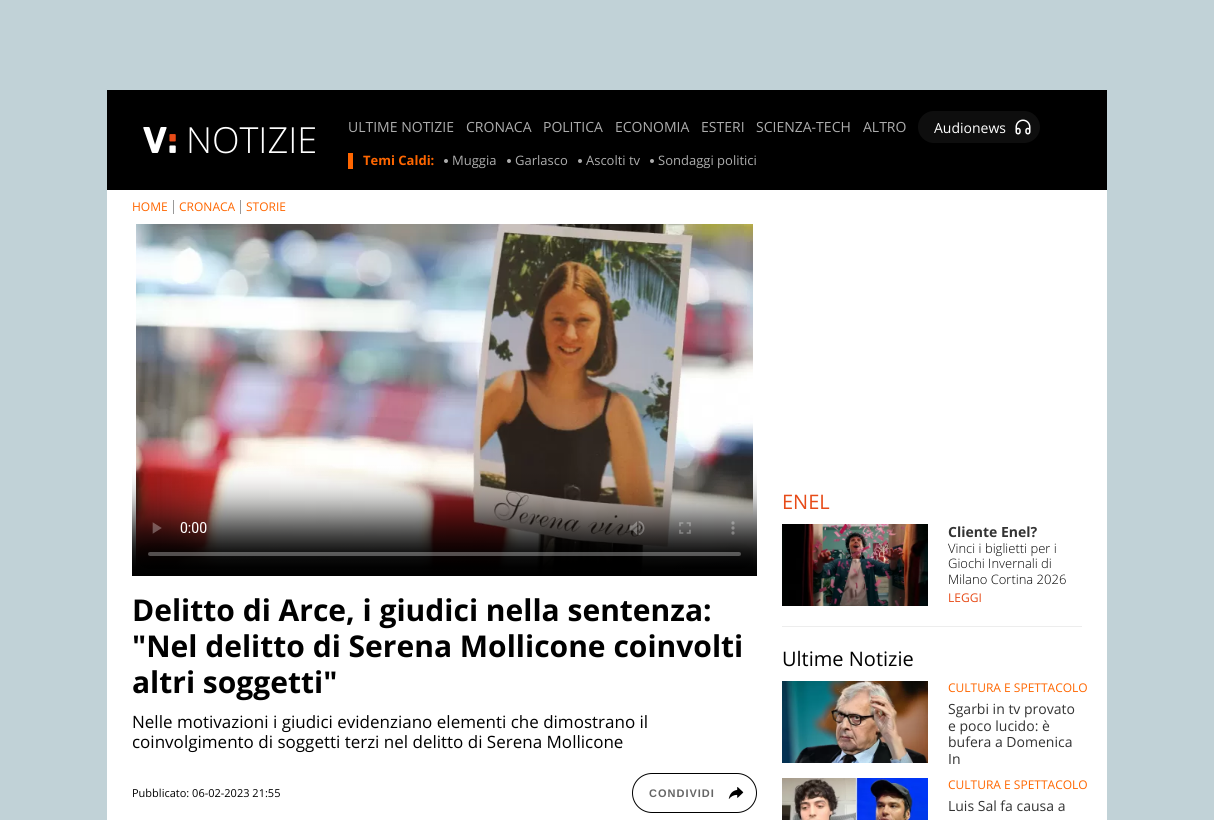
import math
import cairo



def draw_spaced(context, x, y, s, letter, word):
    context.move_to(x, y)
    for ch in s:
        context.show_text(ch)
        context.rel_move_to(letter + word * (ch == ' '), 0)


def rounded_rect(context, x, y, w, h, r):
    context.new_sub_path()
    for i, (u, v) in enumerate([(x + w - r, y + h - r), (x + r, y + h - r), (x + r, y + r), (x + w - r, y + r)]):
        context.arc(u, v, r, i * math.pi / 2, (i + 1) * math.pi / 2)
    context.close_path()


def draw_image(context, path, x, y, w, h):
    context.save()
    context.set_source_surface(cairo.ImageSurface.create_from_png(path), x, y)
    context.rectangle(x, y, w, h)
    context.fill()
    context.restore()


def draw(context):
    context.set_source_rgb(193 / 255, 210 / 255, 215 / 255)
    context.paint()
    context.set_source_rgb(1, 1, 1)
    context.rectangle(107, 190, 1000, 630)
    context.fill()
    context.set_source_rgb(0, 0, 0)
    context.rectangle(107, 90, 1000, 100)
    context.fill()
    draw_image(context, "images/1.png", 143, 127, 33, 26)
    context.set_source_rgb(14 / 255, 14 / 255, 14 / 255)
    rounded_rect(context, 918, 111, 122, 32, 16)
    context.fill()
    draw_image(context, "images/2.png", 1015, 119, 16, 16)
    context.set_source_rgb(1, 102 / 255, 0)
    context.rectangle(348, 153, 5, 16)
    context.fill()
    context.set_source_rgb(173 / 255, 173 / 255, 173 / 255)
    context.arc(446, 161, 2, 0, 2 * math.pi)
    context.fill()
    context.arc(509, 161, 2, 0, 2 * math.pi)
    context.fill()
    context.arc(580, 161, 2, 0, 2 * math.pi)
    context.fill()
    context.arc(652, 161, 2, 0, 2 * math.pi)
    context.fill()
    context.set_source_rgb(153 / 255, 153 / 255, 153 / 255)
    context.rectangle(173, 200, 1, 14)
    context.fill()
    context.rectangle(240, 200, 1, 14)
    context.fill()
    draw_image(context, "images/3.png", 132, 224, 625, 352)
    rounded_rect(context, 632.5, 773.5, 124, 39, 19.5)
    context.set_source_rgb(0, 0, 0)
    context.set_line_width(1)
    context.stroke()
    draw_image(context, "images/4.png", 728, 787, 16, 12)
    draw_image(context, "images/5.png", 782, 524, 146, 82)
    context.set_source_rgb(237 / 255, 237 / 255, 237 / 255)
    context.rectangle(782, 626, 300, 1)
    context.fill()
    draw_image(context, "images/6.png", 782, 681, 146, 82)
    draw_image(context, "images/7.png", 782, 778, 146, 42)
    context.select_font_face("Open Sans Light")
    context.set_font_size(36)
    context.set_source_rgb(1, 1, 1)
    context.move_to(186, 153)
    context.show_text("NOTIZIE")
    context.select_font_face("Open Sans")
    context.set_font_size(14)
    context.set_source_rgb(173 / 255, 173 / 255, 173 / 255)
    context.move_to(348, 132)
    context.show_text("ULTIME NOTIZIE")
    context.move_to(466, 132)
    context.show_text("CRONACA")
    context.move_to(543, 132)
    context.show_text("POLITICA")
    context.move_to(615, 132)
    context.show_text("ECONOMIA")
    context.move_to(701, 132)
    context.show_text("ESTERI")
    context.move_to(756, 132)
    context.show_text("SCIENZA-TECH")
    context.move_to(863, 132)
    context.show_text("ALTRO")
    context.set_source_rgb(1, 1, 1)
    context.move_to(934, 133)
    context.show_text("Audionews")
    context.select_font_face("Open Sans", cairo.FontSlant.NORMAL, cairo.FontWeight.BOLD)
    context.set_font_size(13)
    context.set_source_rgb(1, 102 / 255, 0)
    context.move_to(363, 165)
    context.show_text("Temi Caldi:")
    context.select_font_face("Open Sans")
    context.set_source_rgb(173 / 255, 173 / 255, 173 / 255)
    context.move_to(452, 165)
    context.show_text("Muggia")
    context.move_to(515, 165)
    context.show_text("Garlasco")
    context.move_to(586, 165)
    context.show_text("Ascolti tv")
    context.move_to(658, 165)
    context.show_text("Sondaggi politici")
    context.set_font_size(12)
    context.set_source_rgb(1, 102 / 255, 0)
    context.move_to(132, 211)
    context.show_text("HOME")
    context.move_to(179, 211)
    context.show_text("CRONACA")
    context.move_to(246, 211)
    context.show_text("STORIE")
    context.select_font_face("Open Sans", cairo.FontSlant.NORMAL, cairo.FontWeight.BOLD)
    context.set_font_size(30)
    context.set_source_rgb(0, 0, 0)
    context.move_to(132, 621)
    context.show_text("Delitto di Arce, i giudici nella sentenza:")
    context.move_to(132, 657)
    context.show_text("\"Nel delitto di Serena Mollicone coinvolti")
    context.move_to(132, 693)
    context.show_text("altri soggetti\"")
    context.select_font_face("Open Sans")
    context.set_font_size(17)
    context.move_to(132, 728)
    context.show_text("Nelle motivazioni i giudici evidenziano elementi che dimostrano il")
    context.move_to(132, 748)
    context.show_text("coinvolgimento di soggetti terzi nel delitto di Serena Mollicone")
    context.set_font_size(11)
    context.move_to(132, 797)
    context.show_text("Pubblicato: 06-02-2023 21:55")
    context.select_font_face("Liberation Sans", cairo.FontSlant.NORMAL, cairo.FontWeight.BOLD)
    context.set_source_rgb(102 / 255, 102 / 255, 102 / 255)
    draw_spaced(context, 649, 797, "CONDIVIDI", 1, 0)
    context.select_font_face("Open Sans")
    context.set_font_size(20)
    context.set_source_rgb(231 / 255, 75 / 255, 24 / 255)
    context.move_to(782, 509)
    context.show_text("ENEL")
    context.select_font_face("Open Sans", cairo.FontSlant.NORMAL, cairo.FontWeight.BOLD)
    context.set_font_size(14)
    context.set_source_rgb(51 / 255, 51 / 255, 51 / 255)
    context.move_to(948, 537)
    context.show_text("Cliente Enel?")
    context.select_font_face("Open Sans Light")
    context.set_font_size(13)
    context.set_source_rgb(0, 0, 0)
    context.move_to(948, 553)
    context.show_text("Vinci i biglietti per i")
    context.move_to(948, 568)
    context.show_text("Giochi Invernali di")
    context.move_to(948, 584)
    context.show_text("Milano Cortina 2026")
    context.select_font_face("Open Sans")
    context.set_font_size(12)
    context.set_source_rgb(231 / 255, 75 / 255, 24 / 255)
    context.move_to(948, 602)
    context.show_text("LEGGI")
    context.set_font_size(20)
    context.set_source_rgb(0, 0, 0)
    context.move_to(782, 666)
    context.show_text("Ultime Notizie")
    context.set_font_size(12)
    context.set_source_rgb(1, 102 / 255, 0)
    context.move_to(948, 692)
    context.show_text("CULTURA E SPETTACOLO")
    context.set_font_size(14)
    context.set_source_rgb(51 / 255, 51 / 255, 51 / 255)
    context.move_to(948, 714)
    context.show_text("Sgarbi in tv provato")
    context.move_to(948, 731)
    context.show_text("e poco lucido: è")
    context.move_to(948, 747)
    context.show_text("bufera a Domenica")
    context.move_to(948, 764)
    context.show_text("In")
    context.set_font_size(12)
    context.set_source_rgb(1, 102 / 255, 0)
    context.move_to(948, 789)
    context.show_text("CULTURA E SPETTACOLO")
    context.set_font_size(14)
    context.set_source_rgb(51 / 255, 51 / 255, 51 / 255)
    context.move_to(948, 811)
    context.show_text("Luis Sal fa causa a")


surface = cairo.ImageSurface(cairo.Format.RGB24, 1214, 820)
context = cairo.Context(surface)
options = cairo.FontOptions()
options.set_hint_metrics(cairo.HintMetrics.OFF)
options.set_hint_style(cairo.HintStyle.NONE)
context.set_font_options(options)
context.set_miter_limit(4)
draw(context)
surface.write_to_png("out.png")
